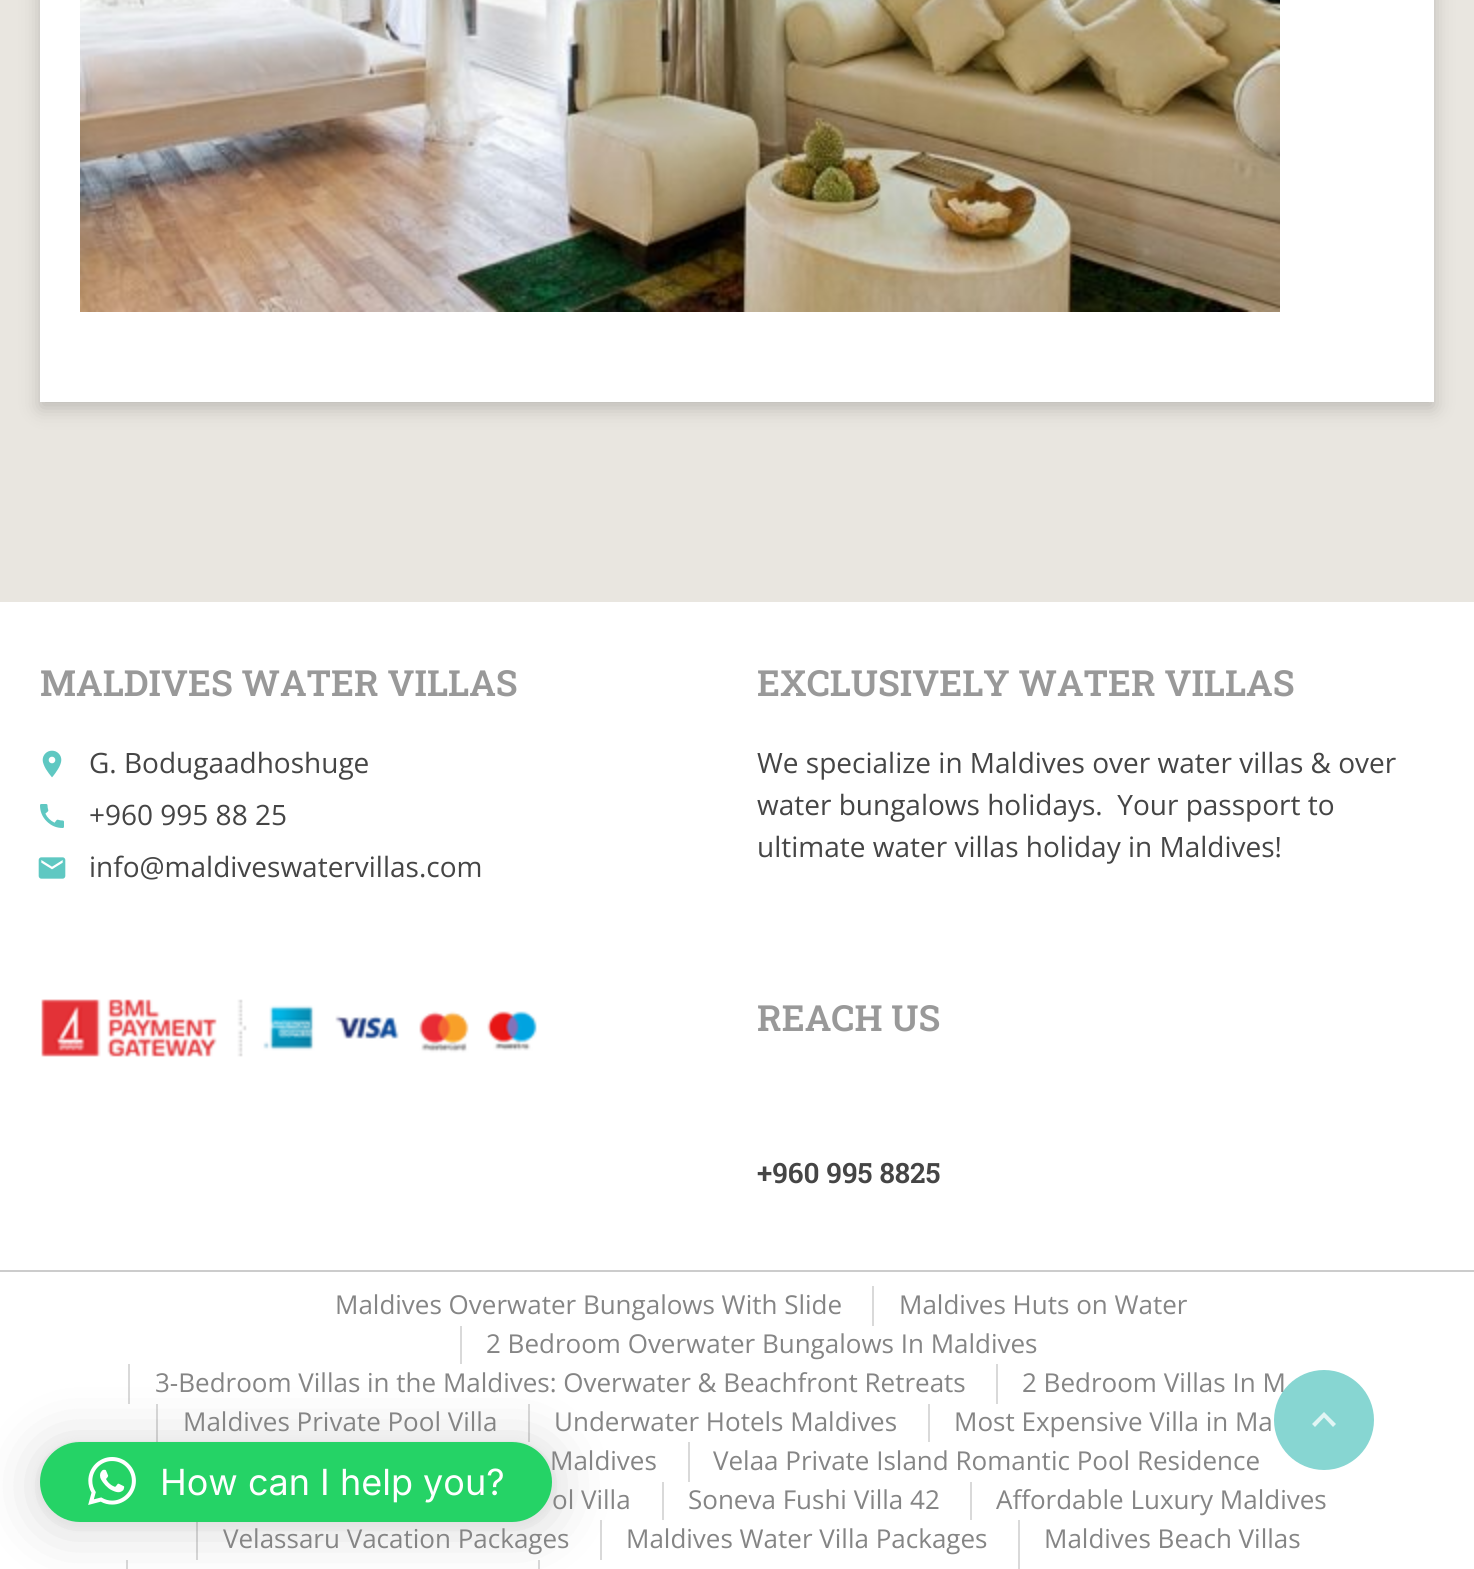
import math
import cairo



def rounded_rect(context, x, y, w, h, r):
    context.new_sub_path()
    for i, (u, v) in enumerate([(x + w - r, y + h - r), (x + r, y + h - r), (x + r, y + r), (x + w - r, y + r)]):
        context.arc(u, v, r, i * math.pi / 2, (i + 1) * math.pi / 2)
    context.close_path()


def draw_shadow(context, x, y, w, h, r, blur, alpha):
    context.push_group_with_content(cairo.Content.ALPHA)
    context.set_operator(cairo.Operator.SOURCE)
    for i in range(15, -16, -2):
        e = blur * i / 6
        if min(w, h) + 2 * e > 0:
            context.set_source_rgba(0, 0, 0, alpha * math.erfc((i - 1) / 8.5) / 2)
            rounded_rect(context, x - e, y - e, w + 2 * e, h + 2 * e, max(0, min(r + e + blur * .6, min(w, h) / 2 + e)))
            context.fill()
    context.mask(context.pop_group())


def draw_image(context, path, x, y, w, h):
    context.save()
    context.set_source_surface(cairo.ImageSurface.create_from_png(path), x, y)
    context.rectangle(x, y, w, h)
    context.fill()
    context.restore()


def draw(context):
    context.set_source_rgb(233 / 255, 230 / 255, 224 / 255)
    context.paint()
    context.set_source_rgb(0, 0, 0)
    draw_shadow(context, 40, -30, 1394, 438, 0, 10, 0.2)
    context.set_source_rgb(1, 1, 1)
    context.rectangle(40, 0, 1394, 402)
    context.fill()
    draw_image(context, "images/1.png", 80, 0, 1200, 312)
    context.rectangle(0, 602, 1474, 967)
    context.fill()
    context.set_source_rgb(204 / 255, 204 / 255, 204 / 255)
    context.rectangle(0, 1270, 1474, 2)
    context.fill()
    draw_image(context, "images/2.png", 42, 750, 20, 28)
    draw_image(context, "images/3.png", 40, 804, 24, 24)
    draw_image(context, "images/4.png", 38, 857, 28, 22)
    draw_image(context, "images/5.png", 41, 999, 496, 58)
    context.set_source_rgb(217 / 255, 217 / 255, 217 / 255)
    context.rectangle(872, 1286, 2, 40)
    context.fill()
    context.rectangle(460, 1326, 2, 38)
    context.fill()
    context.rectangle(128, 1364, 2, 40)
    context.fill()
    context.rectangle(996, 1364, 2, 40)
    context.fill()
    context.rectangle(156, 1404, 2, 38)
    context.fill()
    context.rectangle(528, 1404, 2, 38)
    context.fill()
    context.rectangle(928, 1404, 2, 38)
    context.fill()
    context.rectangle(688, 1442, 2, 40)
    context.fill()
    context.rectangle(662, 1482, 2, 38)
    context.fill()
    context.rectangle(970, 1482, 2, 38)
    context.fill()
    context.rectangle(196, 1520, 2, 40)
    context.fill()
    context.rectangle(600, 1520, 2, 40)
    context.fill()
    context.rectangle(1018, 1520, 2, 49)
    context.fill()
    context.rectangle(126, 1560, 2, 9)
    context.fill()
    context.rectangle(538, 1560, 2, 9)
    context.fill()
    context.set_source_rgb(0, 0, 0)
    draw_shadow(context, 40, 1446, 512, 80, 40, 32, 0.16)
    draw_shadow(context, 40, 1444, 512, 80, 40, 6, 0.06)
    context.set_source_rgb(37 / 255, 211 / 255, 102 / 255)
    rounded_rect(context, 40, 1442, 512, 80, 40)
    context.fill()
    draw_image(context, "images/6.png", 88, 1457, 48, 48)
    context.select_font_face("Roboto Slab SemiBold")
    context.set_font_size(36)
    context.set_source_rgb(153 / 255, 153 / 255, 153 / 255)
    context.move_to(40, 696)
    context.show_text("MALDIVES WATER VILLAS")
    context.select_font_face("Open Sans")
    context.set_font_size(28)
    context.set_source_rgb(69 / 255, 69 / 255, 69 / 255)
    context.move_to(89, 773)
    context.show_text("G. Bodugaadhoshuge")
    context.move_to(89, 825)
    context.show_text("+960 995 88 25")
    context.move_to(89, 877)
    context.show_text("info@maldiveswatervillas.com")
    context.select_font_face("Roboto Slab SemiBold")
    context.set_font_size(36)
    context.set_source_rgb(153 / 255, 153 / 255, 153 / 255)
    context.move_to(757, 696)
    context.show_text("EXCLUSIVELY WATER VILLAS")
    context.select_font_face("Open Sans")
    context.set_font_size(28)
    context.set_source_rgb(69 / 255, 69 / 255, 69 / 255)
    context.move_to(757, 773)
    context.show_text("We specialize in Maldives over water villas & over")
    context.move_to(757, 815)
    context.show_text("water bungalows holidays.  Your passport to")
    context.move_to(757, 857)
    context.show_text("ultimate water villas holiday in Maldives!")
    context.select_font_face("Roboto Slab SemiBold")
    context.set_font_size(36)
    context.set_source_rgb(153 / 255, 153 / 255, 153 / 255)
    context.move_to(757, 1031)
    context.show_text("REACH US")
    context.set_font_size(28)
    context.set_source_rgb(69 / 255, 69 / 255, 69 / 255)
    context.move_to(757, 1183)
    context.show_text("+960 995 8825")
    context.select_font_face("Open Sans")
    context.set_font_size(26)
    context.set_source_rgb(133 / 255, 133 / 255, 133 / 255)
    context.move_to(335, 1314)
    context.show_text("Maldives Overwater Bungalows With Slide")
    context.move_to(899, 1314)
    context.show_text("Maldives Huts on Water")
    context.move_to(486, 1353)
    context.show_text("2 Bedroom Overwater Bungalows In Maldives")
    context.move_to(155, 1392)
    context.show_text("3-Bedroom Villas in the Maldives: Overwater & Beachfront Retreats")
    context.move_to(1022, 1392)
    context.show_text("2 Bedroom Villas In M")
    context.set_source_rgba(95 / 255, 200 / 255, 194 / 255, 0.75)
    context.new_path()
    context.arc(1324, 1420, 50, 0, 2 * math.pi)
    context.fill()
    context.set_source_rgba(1, 1, 1, 0.75)
    context.new_path()
    context.move_to(1315, 1427)
    context.line_to(1312, 1424)
    context.line_to(1324, 1412)
    context.line_to(1336, 1424)
    context.line_to(1333, 1427)
    context.line_to(1324, 1417.5)
    context.close_path()
    context.fill()
    context.set_source_rgb(133 / 255, 133 / 255, 133 / 255)
    context.move_to(183, 1431)
    context.show_text("Maldives Private Pool Villa")
    context.move_to(554, 1431)
    context.show_text("Underwater Hotels Maldives")
    context.move_to(954, 1431)
    context.show_text("Most Expensive Villa in Ma")
    context.move_to(550, 1470)
    context.show_text("Maldives")
    context.move_to(713, 1470)
    context.show_text("Velaa Private Island Romantic Pool Residence")
    context.move_to(552, 1509)
    context.show_text("ol Villa")
    context.move_to(688, 1509)
    context.show_text("Soneva Fushi Villa 42")
    context.move_to(996, 1509)
    context.show_text("Affordable Luxury Maldives")
    context.move_to(223, 1548)
    context.show_text("Velassaru Vacation Packages")
    context.move_to(626, 1548)
    context.show_text("Maldives Water Villa Packages")
    context.move_to(1044, 1548)
    context.show_text("Maldives Beach Villas")
    context.select_font_face("Inter")
    context.set_font_size(36)
    context.set_source_rgb(1, 1, 1)
    context.move_to(160, 1495)
    context.show_text("How can I help you?")


surface = cairo.ImageSurface(cairo.Format.RGB24, 1474, 1569)
context = cairo.Context(surface)
options = cairo.FontOptions()
options.set_hint_metrics(cairo.HintMetrics.OFF)
options.set_hint_style(cairo.HintStyle.NONE)
context.set_font_options(options)
context.set_miter_limit(4)
draw(context)
surface.write_to_png("out.png")
